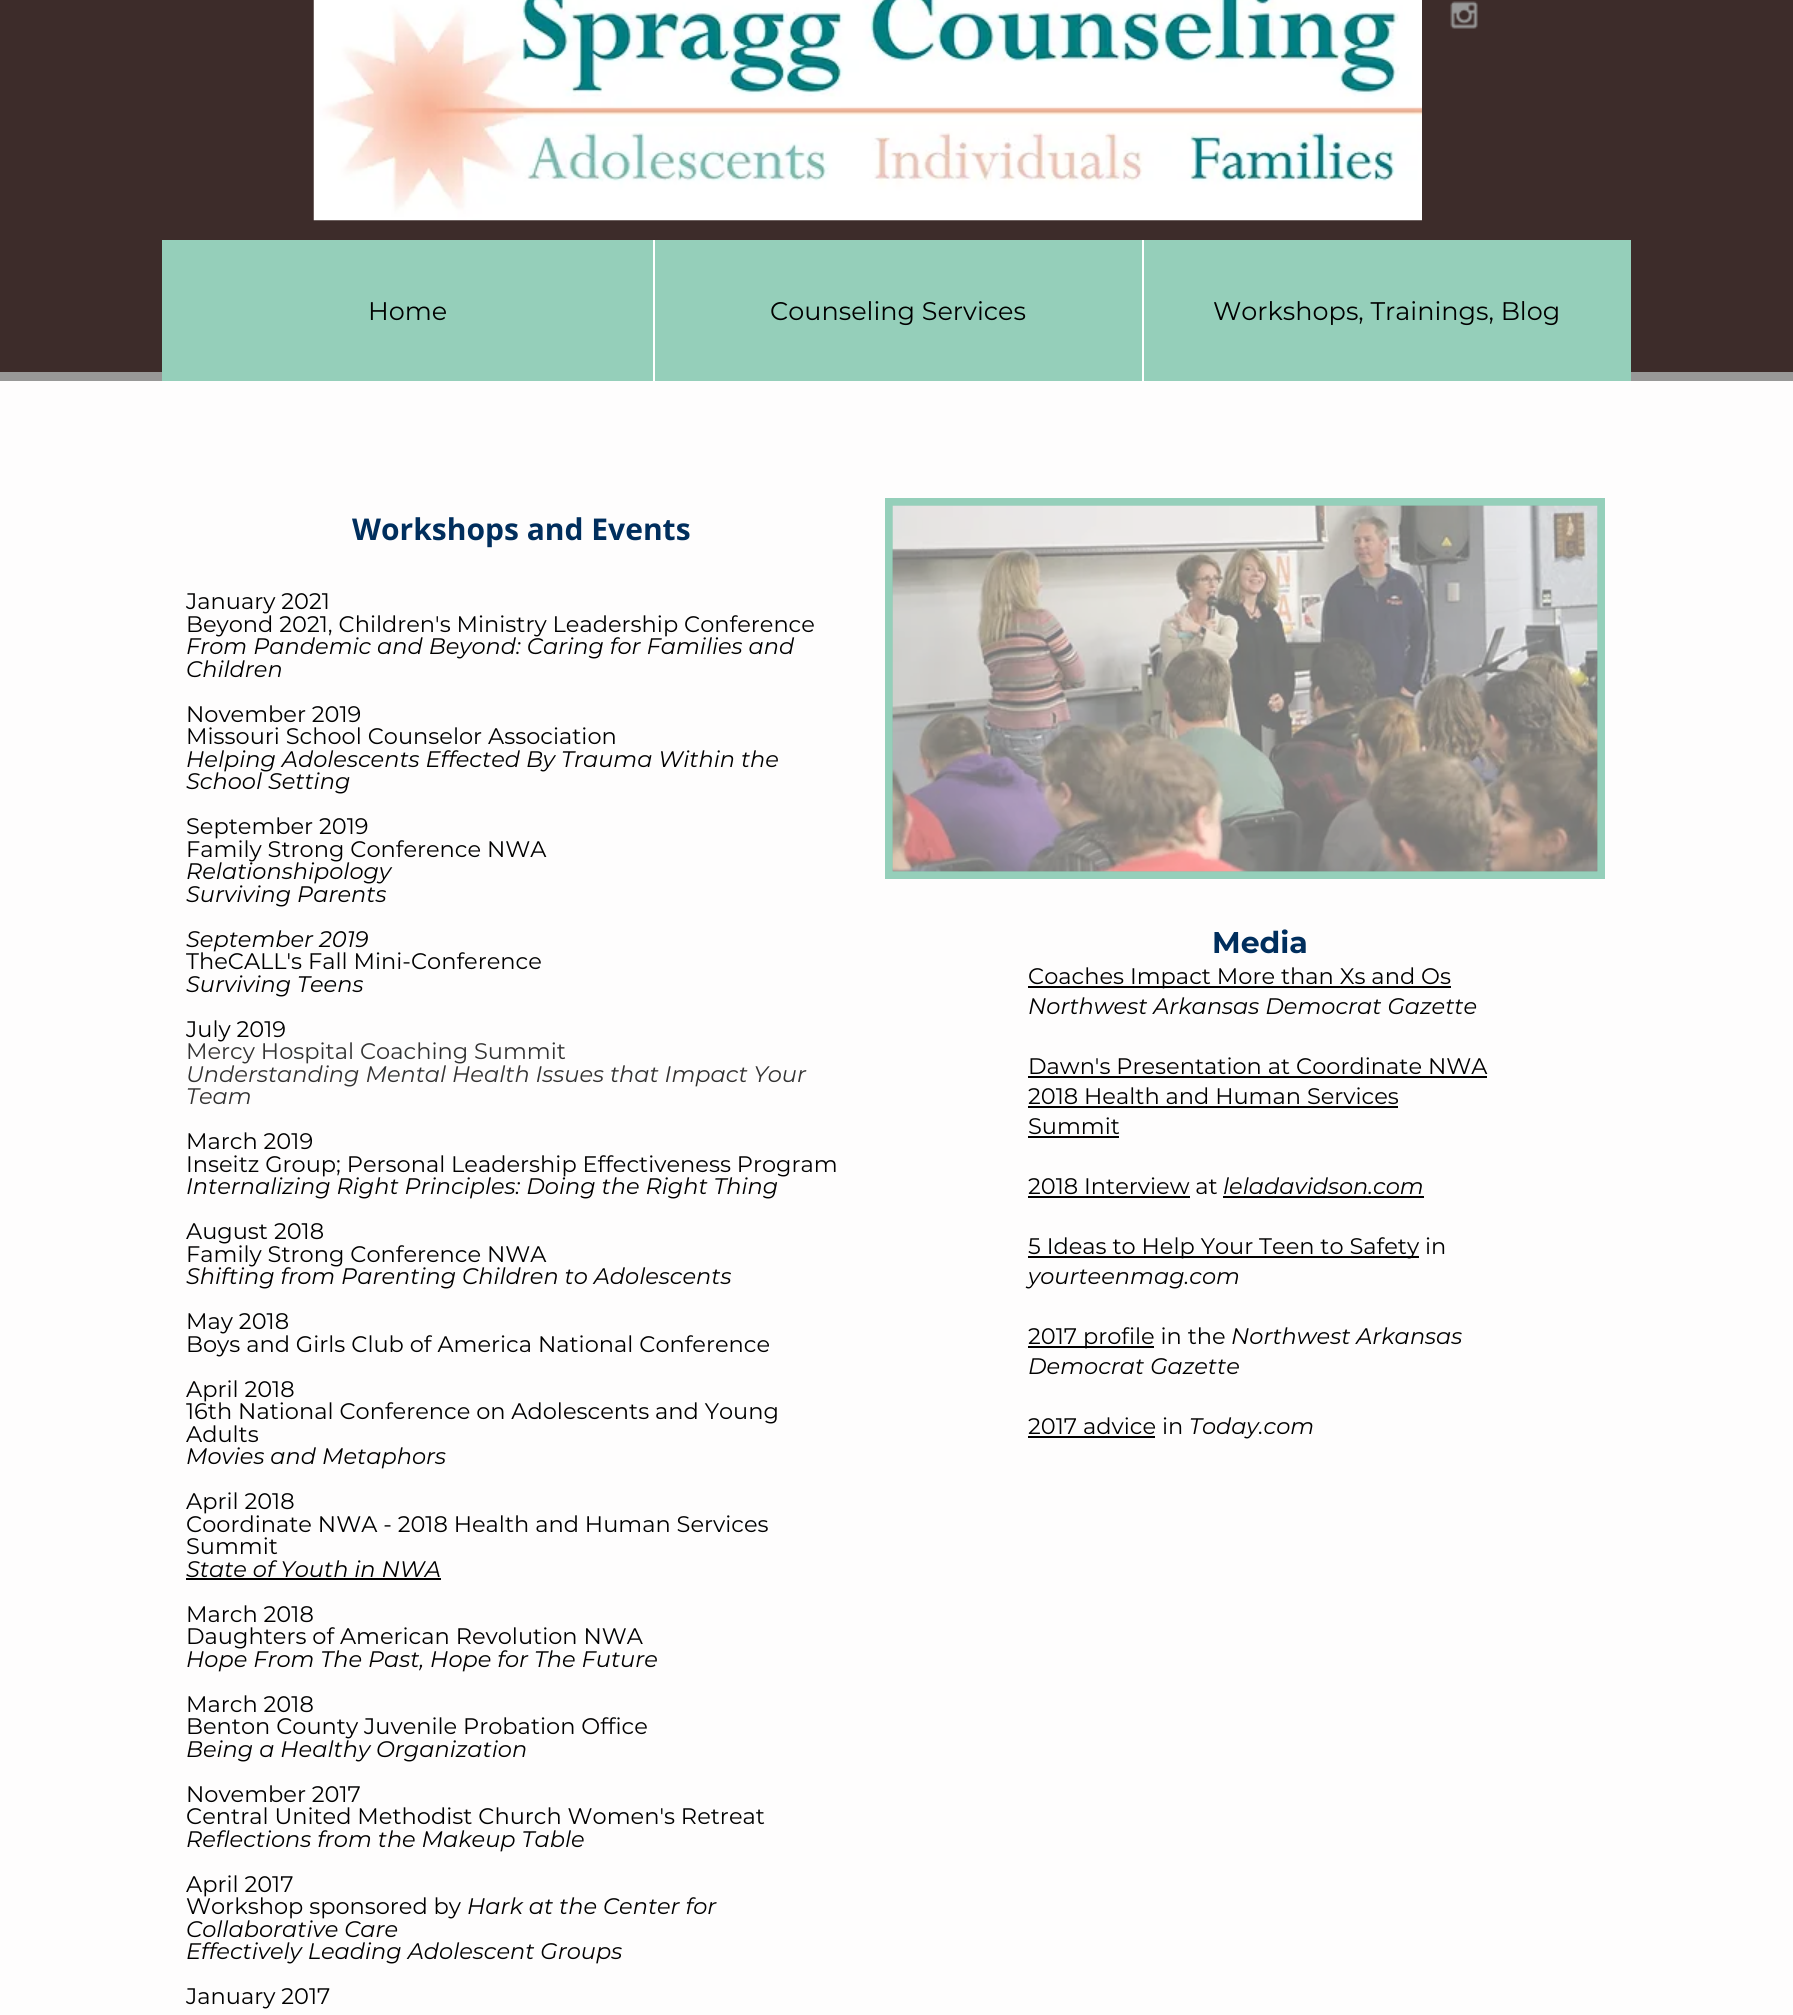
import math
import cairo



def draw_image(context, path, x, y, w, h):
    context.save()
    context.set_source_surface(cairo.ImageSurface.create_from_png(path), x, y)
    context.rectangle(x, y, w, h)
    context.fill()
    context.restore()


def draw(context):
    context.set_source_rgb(254 / 255, 253 / 255, 253 / 255)
    context.paint()
    context.set_source_rgb(61 / 255, 44 / 255, 42 / 255)
    context.rectangle(0, 0, 1793, 372)
    context.fill()
    context.set_source_rgb(152 / 255, 152 / 255, 151 / 255)
    context.rectangle(0, 372, 1793, 9)
    context.fill()
    draw_image(context, "images/1.png", 313, 0, 1109, 221)
    draw_image(context, "images/2.png", 1450, 1, 28, 28)
    context.set_source_rgb(149 / 255, 207 / 255, 186 / 255)
    context.rectangle(162, 240, 1469, 141)
    context.fill()
    context.set_source_rgb(1, 1, 1)
    context.rectangle(653, 240, 2, 141)
    context.fill()
    context.rectangle(1142, 240, 2, 141)
    context.fill()
    context.set_source_rgb(0, 0, 0)
    context.rectangle(186, 1578, 255, 2)
    context.fill()
    context.set_source_rgb(149 / 255, 207 / 255, 186 / 255)
    context.rectangle(885, 498, 720, 381)
    context.fill()
    draw_image(context, "images/3.png", 892, 505, 706, 367)
    context.set_source_rgb(0, 0, 0)
    context.rectangle(1028, 986, 423, 2)
    context.fill()
    context.rectangle(1028, 1076, 459, 2)
    context.fill()
    context.rectangle(1028, 1106, 370, 2)
    context.fill()
    context.rectangle(1028, 1136, 91, 2)
    context.fill()
    context.rectangle(1028, 1196, 162, 2)
    context.fill()
    context.rectangle(1223, 1196, 201, 2)
    context.fill()
    context.rectangle(1028, 1256, 391, 2)
    context.fill()
    context.rectangle(1028, 1346, 126, 2)
    context.fill()
    context.rectangle(1028, 1436, 127, 2)
    context.fill()
    context.select_font_face("Montserrat")
    context.set_font_size(25.5)
    context.move_to(368, 320)
    context.show_text("Home")
    context.move_to(770, 320)
    context.show_text("Counseling Services")
    context.move_to(1213, 320)
    context.show_text("Workshops, Trainings, Blog")
    context.select_font_face("Open Sans", cairo.FontSlant.NORMAL, cairo.FontWeight.BOLD)
    context.set_font_size(30)
    context.set_source_rgb(0, 46 / 255, 93 / 255)
    context.move_to(352, 540)
    context.show_text("Workshops and Events")
    context.select_font_face("Montserrat")
    context.set_font_size(22.5)
    context.set_source_rgb(0, 0, 0)
    context.move_to(186, 609)
    context.show_text("January 2021")
    context.move_to(186, 632)
    context.show_text("Beyond 2021, Children's Ministry Leadership Conference")
    context.select_font_face("Montserrat", cairo.FontSlant.ITALIC)
    context.move_to(186, 654)
    context.show_text("From Pandemic and Beyond: Caring for Families and")
    context.move_to(186, 677)
    context.show_text("Children")
    context.select_font_face("Montserrat")
    context.move_to(186, 722)
    context.show_text("November 2019")
    context.move_to(186, 744)
    context.show_text("Missouri School Counselor Association")
    context.select_font_face("Montserrat", cairo.FontSlant.ITALIC)
    context.move_to(186, 767)
    context.show_text("Helping Adolescents Effected By Trauma Within the")
    context.move_to(186, 789)
    context.show_text("School Setting")
    context.select_font_face("Montserrat")
    context.move_to(186, 834)
    context.show_text("September 2019")
    context.move_to(186, 857)
    context.show_text("Family Strong Conference NWA")
    context.select_font_face("Montserrat", cairo.FontSlant.ITALIC)
    context.move_to(186, 879)
    context.show_text("Relationshipology")
    context.move_to(186, 902)
    context.show_text("Surviving Parents")
    context.move_to(186, 947)
    context.show_text("September 2019")
    context.select_font_face("Montserrat")
    context.move_to(186, 969)
    context.show_text("TheCALL's Fall Mini-Conference")
    context.select_font_face("Montserrat", cairo.FontSlant.ITALIC)
    context.move_to(186, 992)
    context.show_text("Surviving Teens")
    context.select_font_face("Montserrat")
    context.move_to(186, 1037)
    context.show_text("July 2019")
    context.set_source_rgb(50 / 255, 50 / 255, 50 / 255)
    context.move_to(186, 1059)
    context.show_text("Mercy Hospital Coaching Summit")
    context.select_font_face("Montserrat", cairo.FontSlant.ITALIC)
    context.move_to(186, 1082)
    context.show_text("Understanding Mental Health Issues that Impact Your")
    context.move_to(186, 1104)
    context.show_text("Team")
    context.select_font_face("Montserrat")
    context.set_source_rgb(0, 0, 0)
    context.move_to(186, 1149)
    context.show_text("March 2019")
    context.move_to(186, 1172)
    context.show_text("Inseitz Group; Personal Leadership Effectiveness Program")
    context.select_font_face("Montserrat", cairo.FontSlant.ITALIC)
    context.move_to(186, 1194)
    context.show_text("Internalizing Right Principles: Doing the Right Thing")
    context.select_font_face("Montserrat")
    context.move_to(186, 1239)
    context.show_text("August 2018")
    context.move_to(186, 1262)
    context.show_text("Family Strong Conference NWA")
    context.select_font_face("Montserrat", cairo.FontSlant.ITALIC)
    context.move_to(186, 1284)
    context.show_text("Shifting from Parenting Children to Adolescents")
    context.select_font_face("Montserrat")
    context.move_to(186, 1329)
    context.show_text("May 2018")
    context.move_to(186, 1352)
    context.show_text("Boys and Girls Club of America National Conference")
    context.move_to(186, 1397)
    context.show_text("April 2018")
    context.move_to(186, 1419)
    context.show_text("16th National Conference on Adolescents and Young")
    context.move_to(186, 1442)
    context.show_text("Adults")
    context.select_font_face("Montserrat", cairo.FontSlant.ITALIC)
    context.move_to(186, 1464)
    context.show_text("Movies and Metaphors")
    context.select_font_face("Montserrat")
    context.move_to(186, 1509)
    context.show_text("April 2018")
    context.move_to(186, 1532)
    context.show_text("Coordinate NWA - 2018 Health and Human Services")
    context.move_to(186, 1554)
    context.show_text("Summit")
    context.select_font_face("Montserrat", cairo.FontSlant.ITALIC)
    context.move_to(186, 1577)
    context.show_text("State of Youth in NWA")
    context.select_font_face("Montserrat")
    context.move_to(186, 1622)
    context.show_text("March 2018")
    context.move_to(186, 1644)
    context.show_text("Daughters of American Revolution NWA")
    context.select_font_face("Montserrat", cairo.FontSlant.ITALIC)
    context.move_to(186, 1667)
    context.show_text("Hope From The Past, Hope for The Future")
    context.select_font_face("Montserrat")
    context.move_to(186, 1712)
    context.show_text("March 2018")
    context.move_to(186, 1734)
    context.show_text("Benton County Juvenile Probation Office")
    context.select_font_face("Montserrat", cairo.FontSlant.ITALIC)
    context.move_to(186, 1757)
    context.show_text("Being a Healthy Organization")
    context.select_font_face("Montserrat")
    context.move_to(186, 1802)
    context.show_text("November 2017")
    context.move_to(186, 1824)
    context.show_text("Central United Methodist Church Women's Retreat")
    context.select_font_face("Montserrat", cairo.FontSlant.ITALIC)
    context.move_to(186, 1847)
    context.show_text("Reflections from the Makeup Table")
    context.select_font_face("Montserrat")
    context.move_to(186, 1892)
    context.show_text("April 2017")
    context.move_to(186, 1914)
    context.show_text("Workshop sponsored by")
    context.select_font_face("Montserrat", cairo.FontSlant.ITALIC)
    context.move_to(467, 1914)
    context.show_text("Hark at the Center for")
    context.move_to(186, 1937)
    context.show_text("Collaborative Care")
    context.move_to(186, 1959)
    context.show_text("Effectively Leading Adolescent Groups")
    context.select_font_face("Montserrat")
    context.move_to(186, 2004)
    context.show_text("January 2017")
    context.select_font_face("Montserrat", cairo.FontSlant.NORMAL, cairo.FontWeight.BOLD)
    context.set_font_size(30)
    context.set_source_rgb(0, 46 / 255, 93 / 255)
    context.move_to(1212, 953)
    context.show_text("Media")
    context.select_font_face("Montserrat")
    context.set_font_size(22.5)
    context.set_source_rgb(0, 0, 0)
    context.move_to(1028, 984)
    context.show_text("Coaches Impact More than Xs and Os")
    context.select_font_face("Montserrat", cairo.FontSlant.ITALIC)
    context.move_to(1028, 1014)
    context.show_text("Northwest Arkansas Democrat Gazette")
    context.select_font_face("Montserrat")
    context.move_to(1028, 1074)
    context.show_text("Dawn's Presentation at Coordinate NWA")
    context.move_to(1028, 1104)
    context.show_text("2018 Health and Human Services")
    context.move_to(1028, 1134)
    context.show_text("Summit")
    context.move_to(1028, 1194)
    context.show_text("2018 Interview at")
    context.select_font_face("Montserrat", cairo.FontSlant.ITALIC)
    context.move_to(1223, 1194)
    context.show_text("leladavidson.com")
    context.select_font_face("Montserrat")
    context.move_to(1028, 1254)
    context.show_text("5 Ideas to Help Your Teen to Safety in")
    context.select_font_face("Montserrat", cairo.FontSlant.ITALIC)
    context.move_to(1028, 1284)
    context.show_text("yourteenmag.com")
    context.select_font_face("Montserrat")
    context.move_to(1028, 1344)
    context.show_text("2017 profile in the")
    context.select_font_face("Montserrat", cairo.FontSlant.ITALIC)
    context.move_to(1231, 1344)
    context.show_text("Northwest Arkansas")
    context.move_to(1028, 1374)
    context.show_text("Democrat Gazette")
    context.select_font_face("Montserrat")
    context.move_to(1028, 1434)
    context.show_text("2017 advice in")
    context.select_font_face("Montserrat", cairo.FontSlant.ITALIC)
    context.move_to(1189, 1434)
    context.show_text("Today.com")


surface = cairo.ImageSurface(cairo.Format.RGB24, 1793, 2015)
context = cairo.Context(surface)
options = cairo.FontOptions()
options.set_hint_metrics(cairo.HintMetrics.OFF)
options.set_hint_style(cairo.HintStyle.NONE)
context.set_font_options(options)
context.set_miter_limit(4)
draw(context)
surface.write_to_png("out.png")
